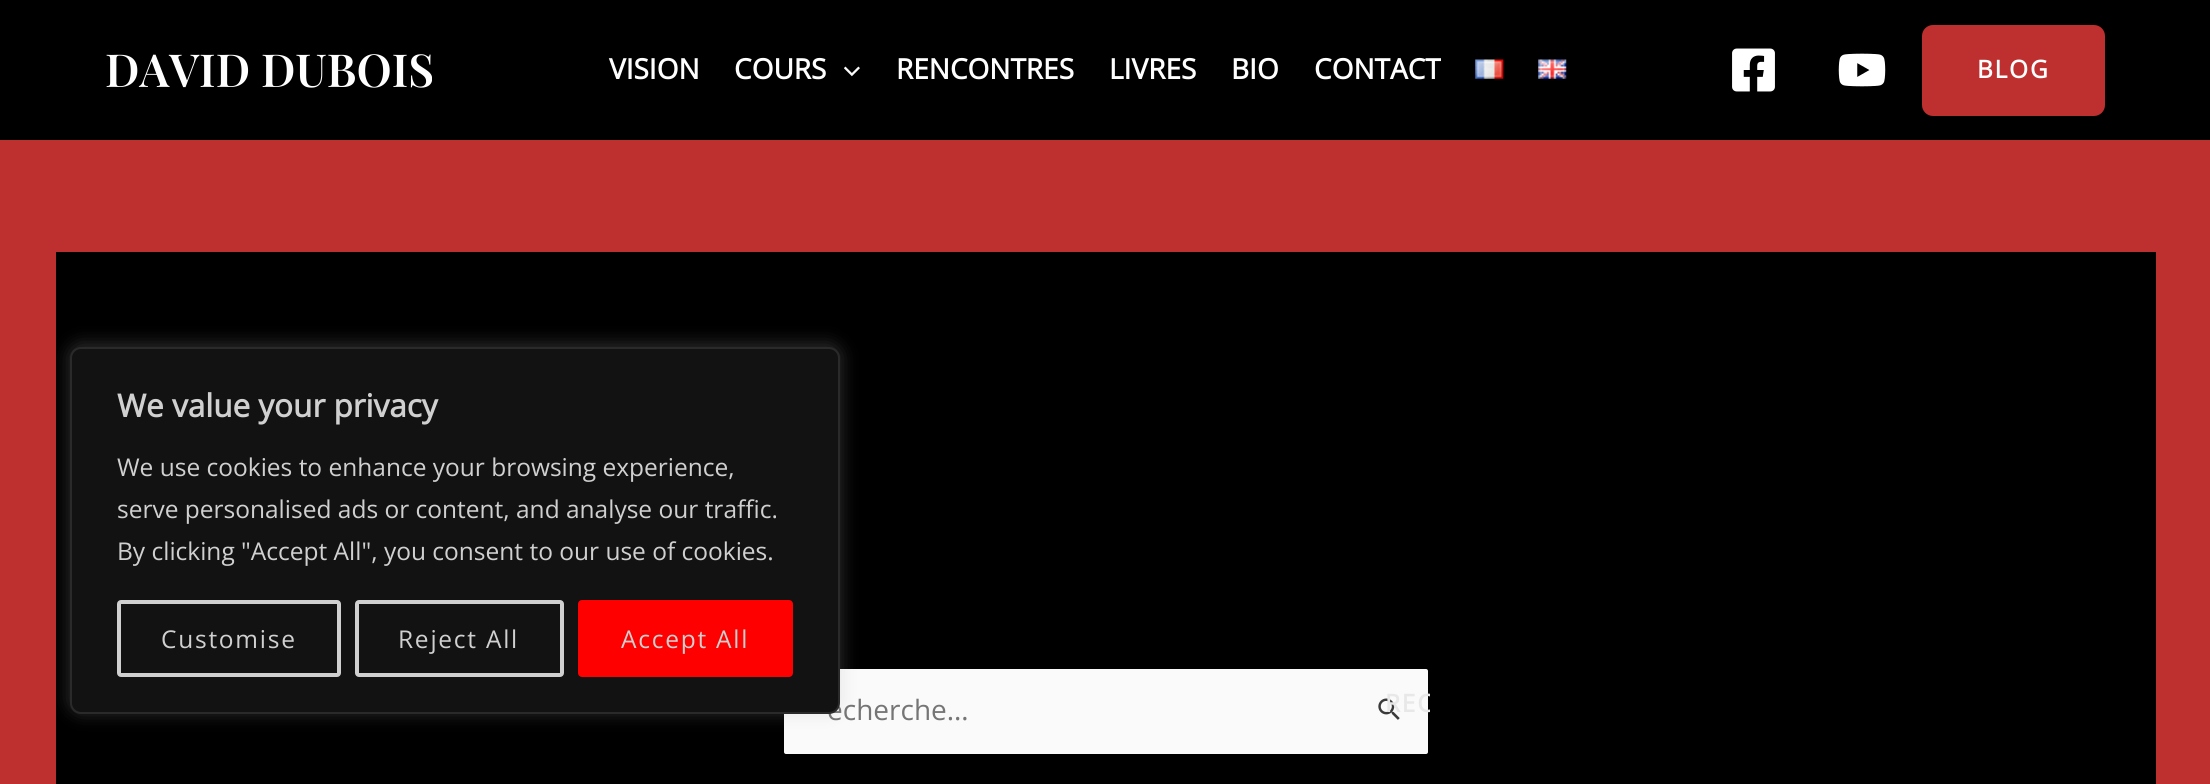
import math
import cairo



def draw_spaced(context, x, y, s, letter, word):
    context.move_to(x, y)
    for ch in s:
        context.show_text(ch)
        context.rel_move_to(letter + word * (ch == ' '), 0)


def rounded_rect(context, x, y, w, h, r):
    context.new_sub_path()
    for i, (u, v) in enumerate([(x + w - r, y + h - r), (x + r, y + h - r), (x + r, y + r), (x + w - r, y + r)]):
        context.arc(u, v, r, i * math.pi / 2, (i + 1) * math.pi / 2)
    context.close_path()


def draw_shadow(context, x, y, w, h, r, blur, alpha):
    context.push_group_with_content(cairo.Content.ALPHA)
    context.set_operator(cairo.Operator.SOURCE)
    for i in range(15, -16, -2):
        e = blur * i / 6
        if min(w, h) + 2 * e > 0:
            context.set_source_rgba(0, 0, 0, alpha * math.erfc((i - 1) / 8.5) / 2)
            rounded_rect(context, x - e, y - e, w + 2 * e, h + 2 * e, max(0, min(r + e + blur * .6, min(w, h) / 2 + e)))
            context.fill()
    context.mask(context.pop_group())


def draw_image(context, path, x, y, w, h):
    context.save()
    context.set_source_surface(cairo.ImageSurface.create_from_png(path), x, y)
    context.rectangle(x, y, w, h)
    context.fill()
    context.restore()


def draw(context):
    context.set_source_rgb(190 / 255, 47 / 255, 47 / 255)
    context.paint()
    context.set_source_rgb(0, 0, 0)
    context.rectangle(0, 0, 2210, 140)
    context.fill()
    draw_image(context, "images/1.png", 844, 66, 16, 11)
    draw_image(context, "images/2.png", 1475, 59, 29, 20)
    draw_image(context, "images/3.png", 1538, 59, 29, 20)
    draw_image(context, "images/4.png", 1732, 48, 43, 44)
    draw_image(context, "images/5.png", 1838, 53, 48, 34)
    context.set_source_rgb(190 / 255, 47 / 255, 47 / 255)
    rounded_rect(context, 1924, 27, 179, 87, 9)
    context.fill_preserve()
    context.set_line_width(4)
    context.stroke()
    context.set_source_rgb(0, 0, 0)
    context.rectangle(56, 252, 2100, 532)
    context.fill()
    context.set_source_rgb(250 / 255, 250 / 255, 250 / 255)
    rounded_rect(context, 783, 668, 646, 87, 3)
    context.fill_preserve()
    context.set_source_rgb(0, 0, 0)
    context.set_line_width(2)
    context.stroke()
    draw_image(context, "images/6.png", 1378, 698, 22, 22)
    context.set_source_rgb(172 / 255, 171 / 255, 171 / 255)
    draw_shadow(context, 70, 345, 770, 367, 11, 9, 0.3)
    context.select_font_face("Playfair Display SemiBold")
    context.set_font_size(45.5)
    context.set_source_rgb(254 / 255, 254 / 255, 254 / 255)
    context.move_to(105, 87)
    context.show_text("DAVID DUBOIS")
    context.select_font_face("Open Sans", cairo.FontSlant.NORMAL, cairo.FontWeight.BOLD)
    context.set_font_size(28)
    context.move_to(609, 79)
    context.show_text("VISION")
    context.move_to(734, 79)
    context.show_text("COURS")
    context.move_to(896, 79)
    context.show_text("RENCONTRES")
    context.move_to(1109, 79)
    context.show_text("LIVRES")
    context.move_to(1231, 79)
    context.show_text("BIO")
    context.move_to(1314, 79)
    context.show_text("CONTACT")
    context.set_font_size(24.5)
    draw_spaced(context, 1977, 78, "BLOG", 1.75, 0)
    context.select_font_face("Open Sans")
    context.set_font_size(28)
    context.set_source_rgb(117 / 255, 117 / 255, 117 / 255)
    context.move_to(827, 720)
    context.show_text("echerche…")
    context.save()
    rounded_rect(context, 1351, 667, 79, 73, 4)
    context.clip()
    context.select_font_face("Open Sans", cairo.FontSlant.NORMAL, cairo.FontWeight.BOLD)
    context.set_font_size(24.5)
    context.set_source_rgb(232 / 255, 232 / 255, 232 / 255)
    draw_spaced(context, 1385, 712, "REC", 1.75, 0)
    context.restore()
    context.set_source_rgb(18 / 255, 18 / 255, 18 / 255)
    rounded_rect(context, 71, 348, 768, 365, 10)
    context.fill_preserve()
    context.set_source_rgb(42 / 255, 42 / 255, 42 / 255)
    context.stroke()
    context.select_font_face("Open Sans", cairo.FontSlant.NORMAL, cairo.FontWeight.BOLD)
    context.set_font_size(31.5)
    context.set_source_rgb(208 / 255, 208 / 255, 208 / 255)
    context.move_to(117, 417)
    context.show_text("We value your privacy")
    context.select_font_face("Open Sans")
    context.set_font_size(24.5)
    context.move_to(117, 476)
    context.show_text("We use cookies to enhance your browsing experience,")
    context.move_to(117, 518)
    context.show_text("serve personalised ads or content, and analyse our traffic.")
    context.move_to(117, 560)
    context.show_text("By clicking \"Accept All\", you consent to our use of cookies.")
    rounded_rect(context, 119, 602, 220, 73, 2)
    context.set_line_width(4)
    context.stroke()
    draw_spaced(context, 161, 648, "Customise", 1.75, 0)
    rounded_rect(context, 357, 602, 205, 73, 2)
    context.stroke()
    draw_spaced(context, 398, 648, "Reject All", 1.75, 0)
    context.set_source_rgb(1, 0, 0)
    rounded_rect(context, 580, 602, 211, 73, 2)
    context.fill_preserve()
    context.stroke()
    context.set_source_rgb(208 / 255, 208 / 255, 208 / 255)
    draw_spaced(context, 621, 648, "Accept All", 1.75, 0)


surface = cairo.ImageSurface(cairo.Format.RGB24, 2210, 784)
context = cairo.Context(surface)
options = cairo.FontOptions()
options.set_hint_metrics(cairo.HintMetrics.OFF)
options.set_hint_style(cairo.HintStyle.NONE)
context.set_font_options(options)
context.set_miter_limit(4)
draw(context)
surface.write_to_png("out.png")
